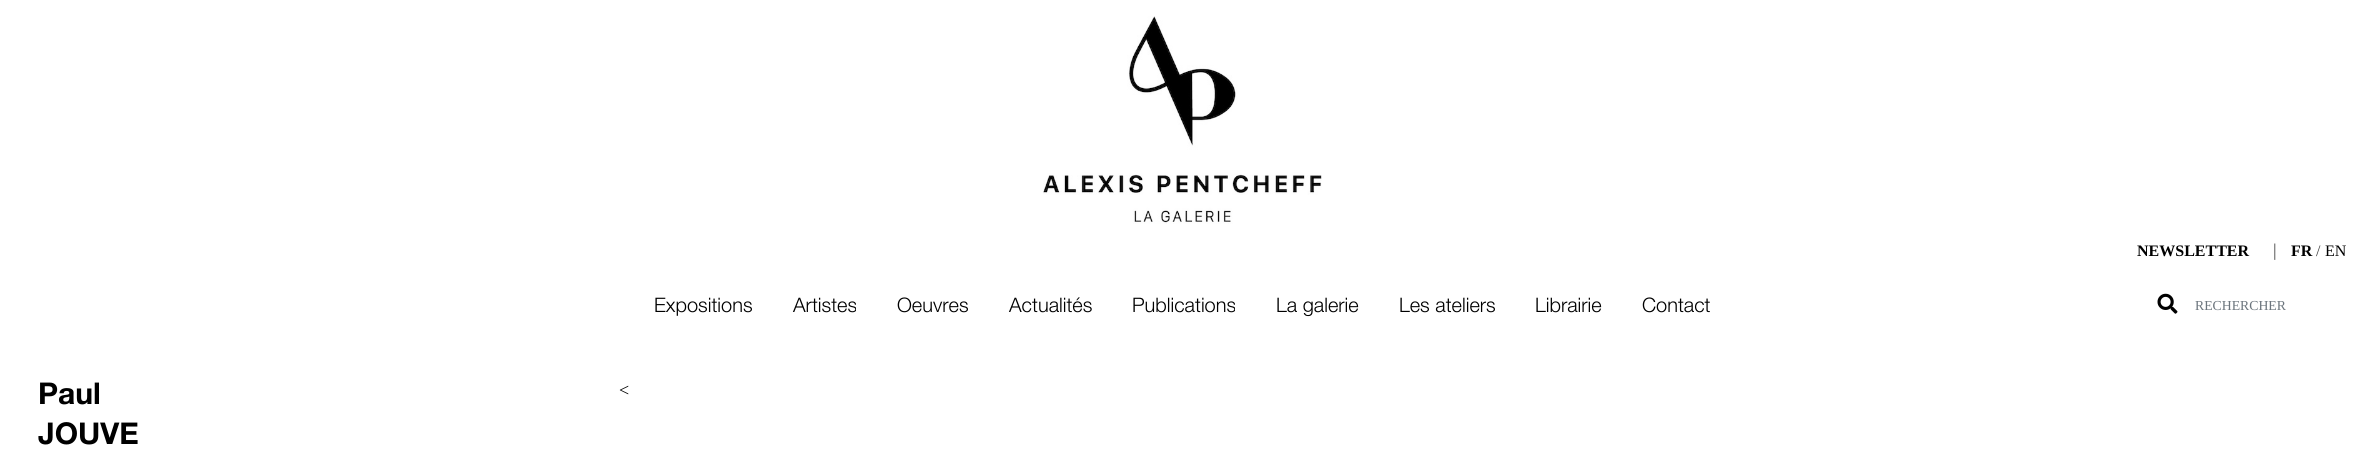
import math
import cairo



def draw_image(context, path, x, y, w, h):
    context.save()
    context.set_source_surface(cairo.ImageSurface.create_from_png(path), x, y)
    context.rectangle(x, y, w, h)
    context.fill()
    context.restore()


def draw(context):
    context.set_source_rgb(1, 1, 1)
    context.paint()
    draw_image(context, "images/1.png", 1043, 16, 279, 208)
    draw_image(context, "images/2.png", 2157, 293, 21, 21)
    context.select_font_face("Liberation Serif", cairo.FontSlant.NORMAL, cairo.FontWeight.BOLD)
    context.set_font_size(16)
    context.set_source_rgb(0, 0, 0)
    context.move_to(2137, 256)
    context.show_text("NEWSLETTER")
    context.select_font_face("Liberation Serif")
    context.set_font_size(18)
    context.set_source_rgb(68 / 255, 68 / 255, 68 / 255)
    context.move_to(2273, 256)
    context.show_text("|")
    context.select_font_face("Liberation Serif", cairo.FontSlant.NORMAL, cairo.FontWeight.BOLD)
    context.set_font_size(16)
    context.set_source_rgb(0, 0, 0)
    context.move_to(2291, 256)
    context.show_text("FR")
    context.select_font_face("Liberation Serif")
    context.set_source_rgb(68 / 255, 68 / 255, 68 / 255)
    context.move_to(2316, 256)
    context.show_text("/")
    context.set_source_rgb(0, 0, 0)
    context.move_to(2325, 256)
    context.show_text("EN")
    context.select_font_face("Helvetica Neue Light")
    context.set_font_size(20)
    context.move_to(654, 312)
    context.show_text("Expositions")
    context.move_to(793, 312)
    context.show_text("Artistes")
    context.move_to(897, 312)
    context.show_text("Oeuvres")
    context.move_to(1009, 312)
    context.show_text("Actualités")
    context.move_to(1132, 312)
    context.show_text("Publications")
    context.move_to(1276, 312)
    context.show_text("La galerie")
    context.move_to(1399, 312)
    context.show_text("Les ateliers")
    context.move_to(1535, 312)
    context.show_text("Librairie")
    context.move_to(1642, 312)
    context.show_text("Contact")
    context.select_font_face("Liberation Serif")
    context.set_font_size(13.75)
    context.set_source_rgb(108 / 255, 117 / 255, 125 / 255)
    context.move_to(2195, 310)
    context.show_text("RECHERCHER")
    context.select_font_face("Helvetica Neue", cairo.FontSlant.NORMAL, cairo.FontWeight.BOLD)
    context.set_font_size(30)
    context.set_source_rgb(0, 0, 0)
    context.move_to(38, 404)
    context.show_text("Paul")
    context.move_to(38, 444)
    context.show_text("JOUVE")
    context.select_font_face("Liberation Serif")
    context.set_font_size(18)
    context.move_to(619, 396)
    context.show_text("<")


surface = cairo.ImageSurface(cairo.Format.RGB24, 2365, 463)
context = cairo.Context(surface)
options = cairo.FontOptions()
options.set_hint_metrics(cairo.HintMetrics.OFF)
options.set_hint_style(cairo.HintStyle.NONE)
context.set_font_options(options)
context.set_miter_limit(4)
draw(context)
surface.write_to_png("out.png")
